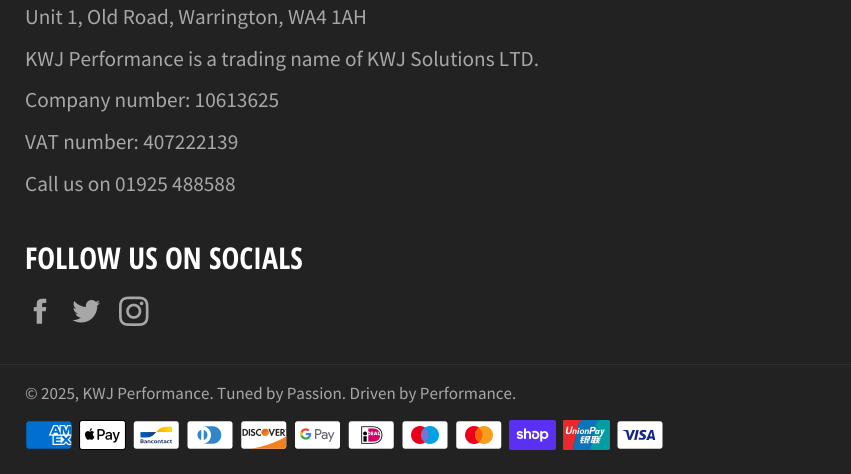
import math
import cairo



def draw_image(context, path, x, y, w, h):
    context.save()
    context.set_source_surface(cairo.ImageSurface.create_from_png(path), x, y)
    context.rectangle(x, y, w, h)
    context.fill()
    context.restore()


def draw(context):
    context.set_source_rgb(34 / 255, 34 / 255, 34 / 255)
    context.paint()
    draw_image(context, "images/1.png", 33, 298, 14, 26)
    draw_image(context, "images/2.png", 72, 300, 28, 23)
    draw_image(context, "images/3.png", 119, 296, 30, 30)
    context.set_source_rgb(47 / 255, 47 / 255, 47 / 255)
    context.rectangle(0, 364, 851, 1)
    context.fill()
    draw_image(context, "images/4.png", 26, 421, 46, 28)
    draw_image(context, "images/5.png", 79, 420, 47, 30)
    draw_image(context, "images/6.png", 133, 421, 46, 28)
    draw_image(context, "images/7.png", 187, 421, 46, 28)
    draw_image(context, "images/8.png", 241, 421, 46, 28)
    draw_image(context, "images/9.png", 295, 421, 45, 28)
    draw_image(context, "images/10.png", 348, 421, 46, 28)
    draw_image(context, "images/11.png", 402, 421, 46, 28)
    draw_image(context, "images/12.png", 456, 421, 46, 28)
    draw_image(context, "images/13.png", 509, 420, 47, 30)
    draw_image(context, "images/14.png", 563, 420, 47, 30)
    draw_image(context, "images/15.png", 617, 421, 46, 28)
    context.select_font_face("Source Sans Pro")
    context.set_font_size(21.25)
    context.set_source_rgb(167 / 255, 167 / 255, 167 / 255)
    context.move_to(25, 24)
    context.show_text("Unit 1, Old Road, Warrington, WA4 1AH")
    context.move_to(25, 66)
    context.show_text("KWJ Performance is a trading name of KWJ Solutions LTD.")
    context.move_to(25, 107)
    context.show_text("Company number: 10613625")
    context.move_to(25, 149)
    context.show_text("VAT number: 407222139")
    context.move_to(25, 191)
    context.show_text("Call us on 01925 488588")
    context.select_font_face("Open Sans Condensed", cairo.FontSlant.NORMAL, cairo.FontWeight.BOLD)
    context.set_font_size(30)
    context.set_source_rgb(1, 1, 1)
    context.move_to(25, 269)
    context.show_text("FOLLOW US ON SOCIALS")
    context.select_font_face("Source Sans Pro")
    context.set_font_size(17)
    context.set_source_rgb(167 / 255, 167 / 255, 167 / 255)
    context.move_to(25, 399)
    context.show_text("© 2025, KWJ Performance. Tuned by Passion. Driven by Performance.")


surface = cairo.ImageSurface(cairo.Format.RGB24, 851, 474)
context = cairo.Context(surface)
options = cairo.FontOptions()
options.set_hint_metrics(cairo.HintMetrics.OFF)
options.set_hint_style(cairo.HintStyle.NONE)
context.set_font_options(options)
context.set_miter_limit(4)
draw(context)
surface.write_to_png("out.png")
